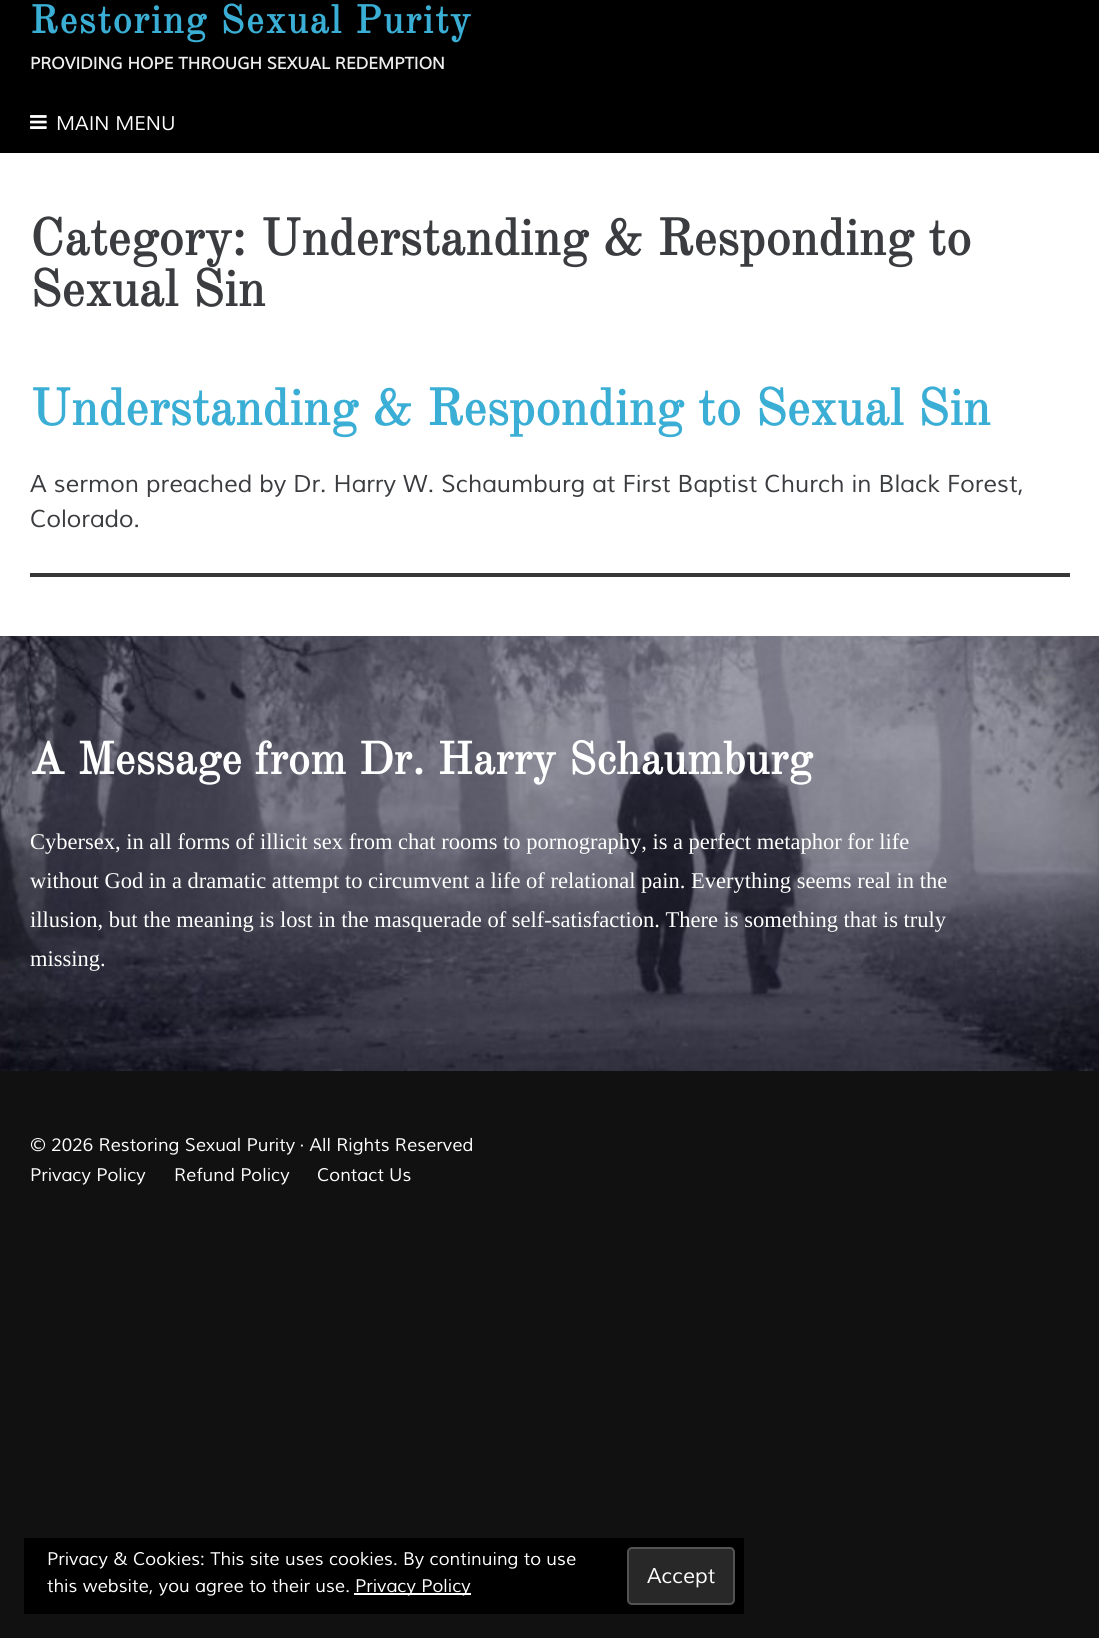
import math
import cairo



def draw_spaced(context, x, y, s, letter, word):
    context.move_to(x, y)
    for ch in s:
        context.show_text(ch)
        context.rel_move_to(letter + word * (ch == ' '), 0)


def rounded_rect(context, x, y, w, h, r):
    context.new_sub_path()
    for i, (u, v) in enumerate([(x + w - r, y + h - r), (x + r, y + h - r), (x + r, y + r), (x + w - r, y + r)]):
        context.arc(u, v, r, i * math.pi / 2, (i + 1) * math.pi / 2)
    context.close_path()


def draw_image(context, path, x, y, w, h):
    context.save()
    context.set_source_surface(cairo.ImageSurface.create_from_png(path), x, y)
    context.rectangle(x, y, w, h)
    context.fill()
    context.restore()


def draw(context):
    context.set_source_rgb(17 / 255, 17 / 255, 17 / 255)
    context.paint()
    context.set_source_rgb(1, 1, 1)
    context.rectangle(0, 153, 1099, 483)
    context.fill()
    context.set_source_rgb(0, 0, 0)
    context.rectangle(0, 0, 1099, 153)
    context.fill()
    draw_image(context, "images/1.png", 30, 115, 17, 14)
    context.set_source_rgb(55 / 255, 55 / 255, 55 / 255)
    context.rectangle(30, 573, 1040, 4)
    context.fill()
    draw_image(context, "images/2.png", 0, 636, 1099, 435)
    context.set_source_rgb(0, 0, 0)
    context.rectangle(24, 1538, 720, 76)
    context.fill()
    context.set_source_rgb(1, 1, 1)
    context.rectangle(354, 1593, 117, 2)
    context.fill()
    context.set_source_rgb(40 / 255, 40 / 255, 40 / 255)
    rounded_rect(context, 628, 1548, 106, 56, 4)
    context.fill_preserve()
    context.set_source_rgb(83 / 255, 83 / 255, 83 / 255)
    context.stroke()
    context.select_font_face("Old Standard TT", cairo.FontSlant.NORMAL, cairo.FontWeight.BOLD)
    context.set_font_size(39)
    context.set_source_rgb(58 / 255, 174 / 255, 212 / 255)
    draw_spaced(context, 30, 33, "Restoring Sexual Purity", 1.5, 0)
    context.select_font_face("Muli", cairo.FontSlant.ITALIC, cairo.FontWeight.BOLD)
    context.set_font_size(16.5)
    context.set_source_rgb(238 / 255, 238 / 255, 238 / 255)
    context.move_to(30, 69)
    context.show_text("PROVIDING HOPE THROUGH SEXUAL REDEMPTION")
    context.select_font_face("Muli", cairo.FontSlant.ITALIC)
    context.set_font_size(19.5)
    context.set_source_rgb(1, 1, 1)
    context.move_to(56, 130)
    context.show_text("MAIN MENU")
    context.select_font_face("Old Standard TT", cairo.FontSlant.NORMAL, cairo.FontWeight.BOLD)
    context.set_font_size(51)
    context.set_source_rgb(58 / 255, 60 / 255, 63 / 255)
    context.move_to(30, 255)
    context.show_text("Category: Understanding & Responding to")
    context.move_to(30, 306)
    context.show_text("Sexual Sin")
    context.set_source_rgb(58 / 255, 174 / 255, 212 / 255)
    context.move_to(30, 425)
    context.show_text("Understanding & Responding to Sexual Sin")
    context.select_font_face("Muli", cairo.FontSlant.ITALIC)
    context.set_font_size(24)
    context.set_source_rgb(58 / 255, 60 / 255, 63 / 255)
    context.move_to(30, 492)
    context.show_text("A sermon preached by Dr. Harry W. Schaumburg at First Baptist Church in Black Forest,")
    context.move_to(30, 527)
    context.show_text("Colorado.")
    context.select_font_face("Old Standard TT", cairo.FontSlant.NORMAL, cairo.FontWeight.BOLD)
    context.set_font_size(45)
    context.set_source_rgb(1, 1, 1)
    context.move_to(30, 774)
    context.show_text("A Message from Dr. Harry Schaumburg")
    context.select_font_face("Liberation Serif")
    context.set_font_size(22.5)
    context.move_to(30, 849)
    context.show_text("Cybersex, in all forms of illicit sex from chat rooms to pornography, is a perfect metaphor for life")
    context.move_to(30, 888)
    context.show_text("without God in a dramatic attempt to circumvent a life of relational pain. Everything seems real in the")
    context.move_to(30, 927)
    context.show_text("illusion, but the meaning is lost in the masquerade of self-satisfaction. There is something that is truly")
    context.move_to(30, 966)
    context.show_text("missing.")
    context.select_font_face("Muli", cairo.FontSlant.ITALIC)
    context.set_font_size(18)
    context.move_to(30, 1151)
    context.show_text("© 2026 Restoring Sexual Purity · All Rights Reserved")
    context.move_to(30, 1181)
    context.show_text("Privacy Policy")
    context.move_to(174, 1181)
    context.show_text("Refund Policy")
    context.move_to(317, 1181)
    context.show_text("Contact Us")
    context.move_to(47, 1565)
    context.show_text("Privacy & Cookies: This site uses cookies. By continuing to use")
    context.move_to(47, 1592)
    context.show_text("this website, you agree to their use.")
    context.move_to(355, 1592)
    context.show_text("Privacy Policy")
    context.set_font_size(21)
    context.move_to(647, 1583)
    context.show_text("Accept")


surface = cairo.ImageSurface(cairo.Format.RGB24, 1099, 1638)
context = cairo.Context(surface)
options = cairo.FontOptions()
options.set_hint_metrics(cairo.HintMetrics.OFF)
options.set_hint_style(cairo.HintStyle.NONE)
context.set_font_options(options)
context.set_miter_limit(4)
draw(context)
surface.write_to_png("out.png")
